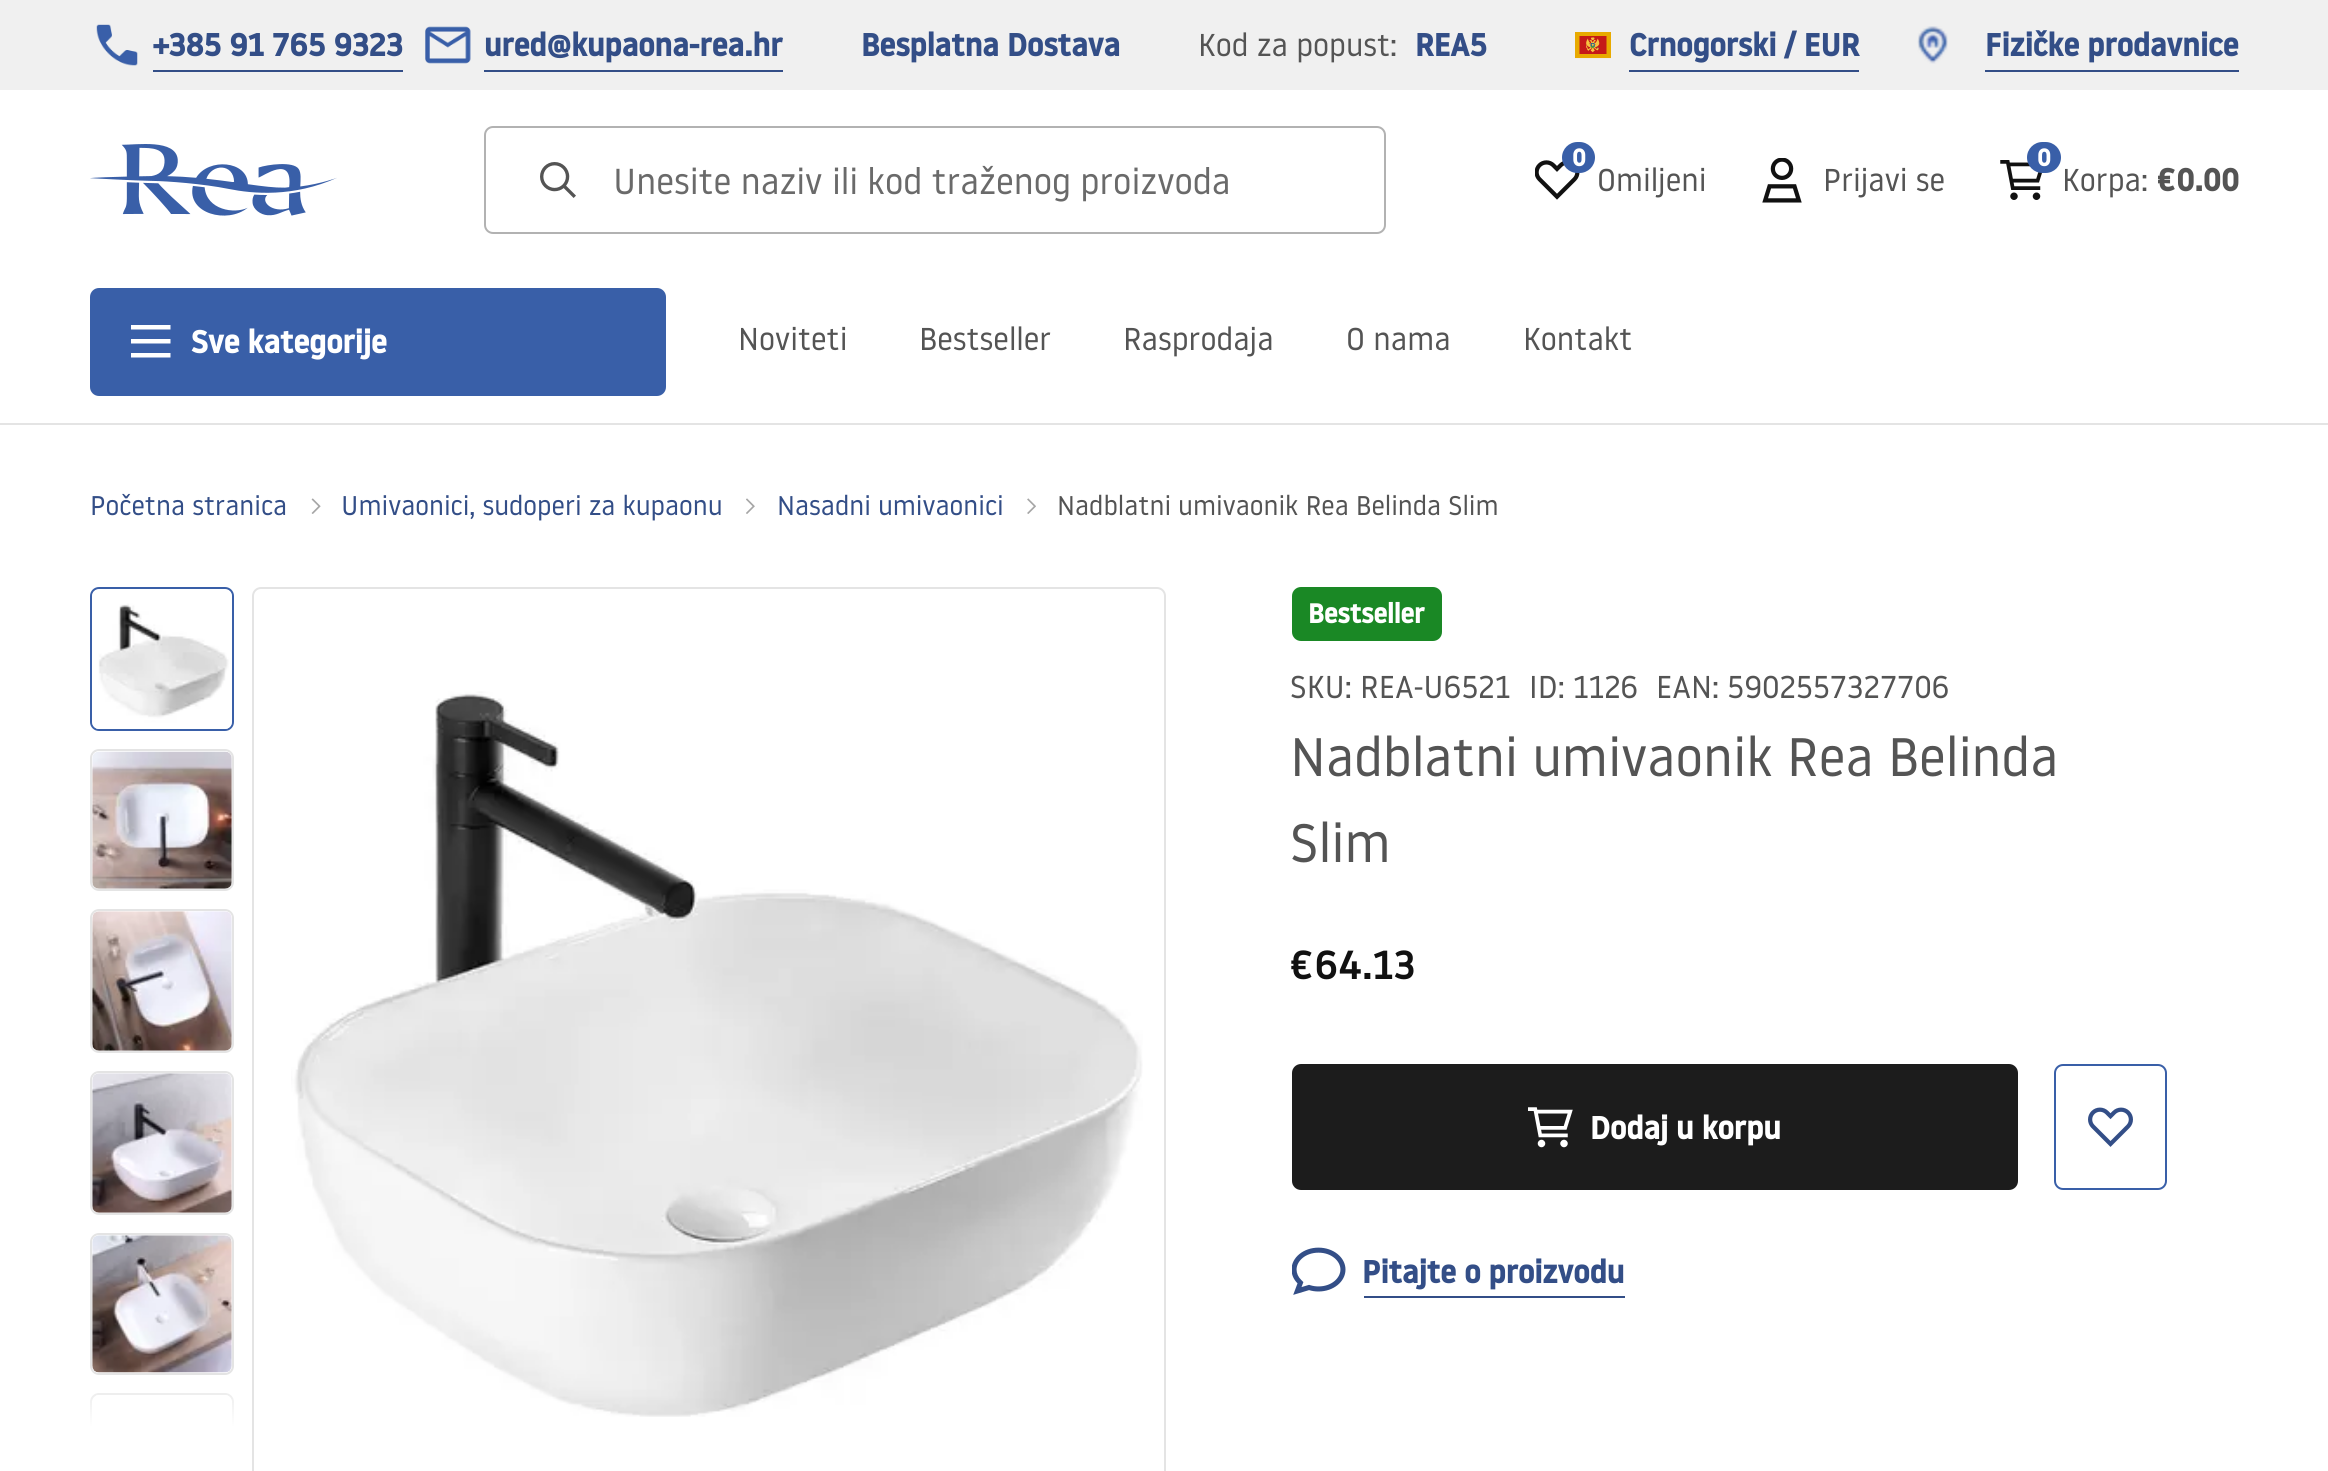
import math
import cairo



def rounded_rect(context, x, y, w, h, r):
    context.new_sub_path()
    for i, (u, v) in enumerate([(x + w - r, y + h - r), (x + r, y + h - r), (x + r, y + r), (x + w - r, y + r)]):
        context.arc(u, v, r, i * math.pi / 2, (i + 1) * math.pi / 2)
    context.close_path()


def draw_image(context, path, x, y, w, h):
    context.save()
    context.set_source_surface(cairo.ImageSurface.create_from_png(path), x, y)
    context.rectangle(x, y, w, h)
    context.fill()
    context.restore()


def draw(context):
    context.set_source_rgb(1, 1, 1)
    context.paint()
    context.set_source_rgb(240 / 255, 240 / 255, 240 / 255)
    context.rectangle(0, 0, 2328, 90)
    context.fill()
    draw_image(context, "images/1.png", 96, 24, 42, 42)
    context.set_source_rgb(51 / 255, 78 / 255, 135 / 255)
    context.rectangle(153, 70, 250, 2)
    context.fill()
    draw_image(context, "images/2.png", 425, 26, 46, 38)
    context.rectangle(484, 70, 299, 2)
    context.fill()
    draw_image(context, "images/3.png", 1575, 32, 36, 27)
    context.rectangle(1629, 70, 230, 2)
    context.fill()
    draw_image(context, "images/4.png", 1917, 26, 31, 38)
    context.rectangle(1985, 70, 254, 2)
    context.fill()
    draw_image(context, "images/5.png", 90, 144, 247, 72)
    rounded_rect(context, 485, 127, 900, 106, 8)
    context.set_source_rgb(178 / 255, 178 / 255, 178 / 255)
    context.stroke()
    draw_image(context, "images/6.png", 540, 162, 36, 36)
    draw_image(context, "images/7.png", 1535, 160, 45, 40)
    context.set_source_rgb(57 / 255, 95 / 255, 168 / 255)
    rounded_rect(context, 1562, 142, 33, 31, 15.5)
    context.fill()
    draw_image(context, "images/8.png", 1762, 158, 40, 45)
    draw_image(context, "images/9.png", 2000, 160, 42, 40)
    rounded_rect(context, 2027, 142, 34, 31, 15.5)
    context.fill()
    context.set_source_rgb(228 / 255, 228 / 255, 228 / 255)
    context.rectangle(0, 423, 2328, 2)
    context.fill()
    context.set_source_rgb(57 / 255, 95 / 255, 168 / 255)
    rounded_rect(context, 90, 288, 576, 108, 9)
    context.fill()
    context.set_source_rgb(1, 1, 1)
    context.new_path()
    context.move_to(131, 325)
    context.line_to(170.5, 325)
    context.line_to(170.5, 329.5)
    context.line_to(131, 329.5)
    context.close_path()
    context.move_to(131, 339)
    context.line_to(170.5, 339)
    context.line_to(170.5, 343.5)
    context.line_to(131, 343.5)
    context.close_path()
    context.move_to(170.5, 353)
    context.line_to(170.5, 357.5)
    context.line_to(131, 357.5)
    context.line_to(131, 353)
    context.close_path()
    context.fill()
    draw_image(context, "images/10.png", 311, 498, 10, 16)
    draw_image(context, "images/11.png", 746, 498, 9, 16)
    draw_image(context, "images/12.png", 1027, 498, 9, 16)
    rounded_rect(context, 91, 588, 142, 142, 8)
    context.set_source_rgb(57 / 255, 95 / 255, 168 / 255)
    context.stroke()
    draw_image(context, "images/13.png", 92, 589, 140, 140)
    rounded_rect(context, 91, 750, 142, 140, 8)
    context.set_source_rgb(228 / 255, 228 / 255, 228 / 255)
    context.stroke()
    draw_image(context, "images/14.png", 92, 751, 140, 138)
    rounded_rect(context, 91, 910, 142, 142, 8)
    context.stroke()
    draw_image(context, "images/15.png", 92, 911, 140, 140)
    rounded_rect(context, 91, 1072, 142, 142, 8)
    context.stroke()
    draw_image(context, "images/16.png", 92, 1073, 140, 140)
    rounded_rect(context, 91, 1234, 142, 140, 8)
    context.stroke()
    draw_image(context, "images/17.png", 92, 1235, 140, 138)
    rounded_rect(context, 91, 1394, 142, 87, 8)
    context.stroke()
    draw_image(context, "images/18.png", 96, 1395, 136, 31)
    gradient = cairo.LinearGradient(162, 1375, 162, 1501)
    gradient.add_color_stop_rgba(0, 1, 1, 1, 0)
    gradient.add_color_stop_rgba(0.41, 1, 1, 1, 1)
    context.set_source(gradient)
    context.rectangle(90, 1393, 144, 78)
    context.fill()
    rounded_rect(context, 253, 588, 912, 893, 8)
    context.set_source_rgb(228 / 255, 228 / 255, 228 / 255)
    context.stroke()
    draw_image(context, "images/19.png", 291, 691, 852, 726)
    context.set_source_rgb(26 / 255, 136 / 255, 37 / 255)
    rounded_rect(context, 1292, 587, 150, 54, 9)
    context.fill()
    context.set_source_rgb(28 / 255, 28 / 255, 28 / 255)
    rounded_rect(context, 1292, 1064, 726, 126, 9)
    context.fill()
    draw_image(context, "images/20.png", 1528, 1107, 45, 41)
    rounded_rect(context, 2055, 1065, 111, 124, 8)
    context.set_source_rgb(57 / 255, 95 / 255, 168 / 255)
    context.stroke()
    draw_image(context, "images/21.png", 2088, 1107, 45, 40)
    draw_image(context, "images/22.png", 1292, 1247, 54, 48)
    context.set_source_rgb(51 / 255, 78 / 255, 135 / 255)
    context.rectangle(1364, 1296, 261, 2)
    context.fill()
    context.select_font_face("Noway", cairo.FontSlant.NORMAL, cairo.FontWeight.BOLD)
    context.set_font_size(31.5)
    context.move_to(153, 56)
    context.show_text("+385 91 765 9323")
    context.move_to(484, 56)
    context.show_text("ured@kupaona-rea.hr")
    context.move_to(861, 56)
    context.show_text("Besplatna Dostava")
    context.select_font_face("Noway")
    context.set_source_rgb(84 / 255, 84 / 255, 84 / 255)
    context.move_to(1198, 56)
    context.show_text("Kod za popust:")
    context.select_font_face("Noway", cairo.FontSlant.NORMAL, cairo.FontWeight.BOLD)
    context.set_source_rgb(51 / 255, 78 / 255, 135 / 255)
    context.move_to(1415, 56)
    context.show_text("REA5")
    context.move_to(1629, 56)
    context.show_text("Crnogorski / EUR")
    context.move_to(1985, 56)
    context.show_text("Fizičke prodavnice")
    context.select_font_face("Noway")
    context.set_font_size(36)
    context.set_source_rgb(106 / 255, 106 / 255, 106 / 255)
    context.move_to(613, 194)
    context.show_text("Unesite naziv ili kod traženog proizvoda")
    context.select_font_face("Noway", cairo.FontSlant.NORMAL, cairo.FontWeight.BOLD)
    context.set_font_size(24)
    context.set_source_rgb(1, 1, 1)
    context.move_to(1572, 166)
    context.show_text("0")
    context.select_font_face("Noway")
    context.set_font_size(31.5)
    context.set_source_rgb(84 / 255, 84 / 255, 84 / 255)
    context.move_to(1597, 191)
    context.show_text("Omiljeni")
    context.move_to(1823, 191)
    context.show_text("Prijavi se")
    context.select_font_face("Noway", cairo.FontSlant.NORMAL, cairo.FontWeight.BOLD)
    context.set_font_size(24)
    context.set_source_rgb(1, 1, 1)
    context.move_to(2037, 166)
    context.show_text("0")
    context.select_font_face("Noway")
    context.set_font_size(31.5)
    context.set_source_rgb(84 / 255, 84 / 255, 84 / 255)
    context.move_to(2062, 191)
    context.show_text("Korpa:")
    context.select_font_face("Noway", cairo.FontSlant.NORMAL, cairo.FontWeight.BOLD)
    context.move_to(2157, 191)
    context.show_text("€0.00")
    context.set_source_rgb(1, 1, 1)
    context.move_to(191, 353)
    context.show_text("Sve kategorije")
    context.select_font_face("Noway")
    context.set_source_rgb(84 / 255, 84 / 255, 84 / 255)
    context.move_to(738, 350)
    context.show_text("Noviteti")
    context.move_to(919, 350)
    context.show_text("Bestseller")
    context.move_to(1123, 350)
    context.show_text("Rasprodaja")
    context.move_to(1346, 350)
    context.show_text("O nama")
    context.move_to(1523, 350)
    context.show_text("Kontakt")
    context.set_font_size(27)
    context.set_source_rgb(51 / 255, 78 / 255, 135 / 255)
    context.move_to(90, 515)
    context.show_text("Početna stranica")
    context.move_to(341, 515)
    context.show_text("Umivaonici, sudoperi za kupaonu")
    context.move_to(777, 515)
    context.show_text("Nasadni umivaonici")
    context.set_source_rgb(84 / 255, 84 / 255, 84 / 255)
    context.move_to(1057, 515)
    context.show_text("Nadblatni umivaonik Rea Belinda Slim")
    context.select_font_face("Noway", cairo.FontSlant.NORMAL, cairo.FontWeight.BOLD)
    context.set_source_rgb(1, 1, 1)
    context.move_to(1308, 623)
    context.show_text("Bestseller")
    context.select_font_face("Noway")
    context.set_font_size(31.5)
    context.set_source_rgb(84 / 255, 84 / 255, 84 / 255)
    context.move_to(1290, 698)
    context.show_text("SKU: REA-U6521")
    context.move_to(1529, 698)
    context.show_text("ID: 1126")
    context.move_to(1656, 698)
    context.show_text("EAN: 5902557327706")
    context.set_font_size(54)
    context.move_to(1290, 776)
    context.show_text("Nadblatni umivaonik Rea Belinda")
    context.move_to(1290, 862)
    context.show_text("Slim")
    context.select_font_face("Noway Medium")
    context.set_font_size(40.5)
    context.set_source_rgb(17 / 255, 17 / 255, 17 / 255)
    context.move_to(1290, 979)
    context.show_text("€64.13")
    context.select_font_face("Noway", cairo.FontSlant.NORMAL, cairo.FontWeight.BOLD)
    context.set_font_size(31.5)
    context.set_source_rgb(1, 1, 1)
    context.move_to(1590, 1139)
    context.show_text("Dodaj u korpu")
    context.set_source_rgb(51 / 255, 78 / 255, 135 / 255)
    context.move_to(1362, 1283)
    context.show_text("Pitajte o proizvodu")


surface = cairo.ImageSurface(cairo.Format.RGB24, 2328, 1471)
context = cairo.Context(surface)
options = cairo.FontOptions()
options.set_hint_metrics(cairo.HintMetrics.OFF)
options.set_hint_style(cairo.HintStyle.NONE)
context.set_font_options(options)
context.set_miter_limit(4)
draw(context)
surface.write_to_png("out.png")
